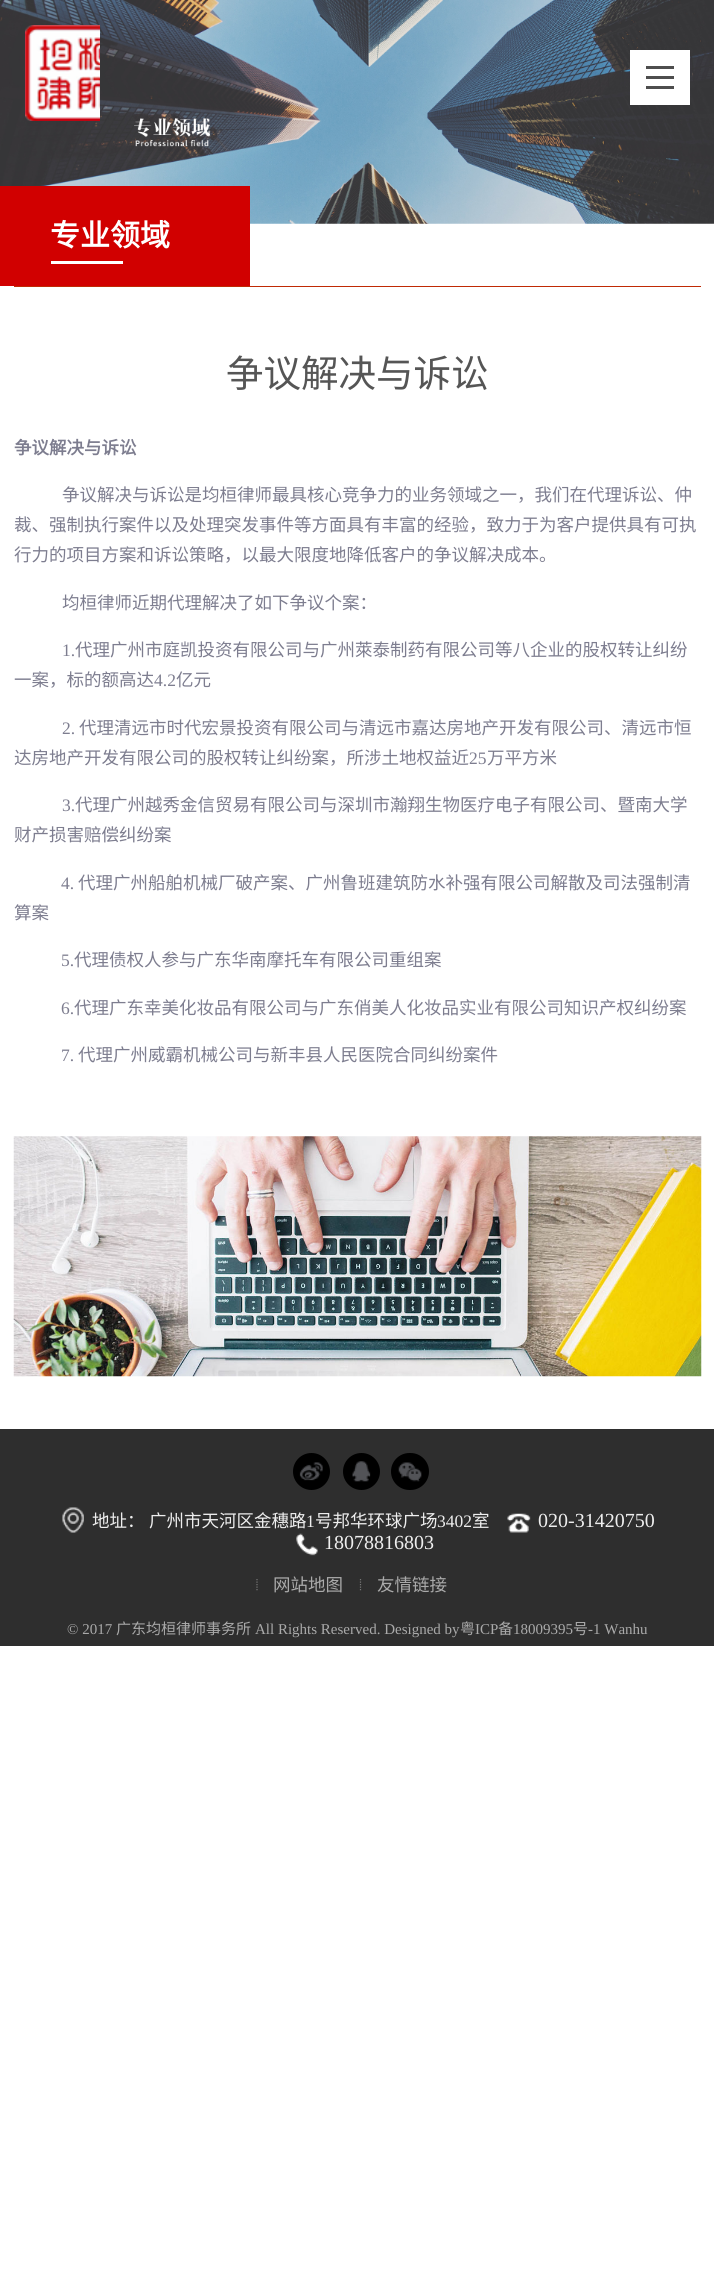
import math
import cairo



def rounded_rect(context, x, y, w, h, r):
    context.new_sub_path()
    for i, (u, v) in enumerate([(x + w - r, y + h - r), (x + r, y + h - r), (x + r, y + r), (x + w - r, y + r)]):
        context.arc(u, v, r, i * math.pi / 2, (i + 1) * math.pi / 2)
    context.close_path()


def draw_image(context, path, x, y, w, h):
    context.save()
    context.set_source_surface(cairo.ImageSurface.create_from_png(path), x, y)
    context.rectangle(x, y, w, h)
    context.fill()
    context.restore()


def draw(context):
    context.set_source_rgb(1, 1, 1)
    context.paint()
    draw_image(context, "images/1.png", 0, 0, 714, 224)
    draw_image(context, "images/2.png", 25, 25, 75, 96)
    context.set_source_rgb(1, 1, 1)
    context.rectangle(630, 50, 60, 55)
    context.fill()
    context.set_source_rgb(78 / 255, 78 / 255, 78 / 255)
    context.rectangle(646, 66, 28, 3)
    context.fill()
    context.rectangle(646, 76, 28, 3)
    context.fill()
    context.rectangle(646, 86, 28, 3)
    context.fill()
    context.set_source_rgb(209 / 255, 0, 0)
    context.rectangle(0, 186, 250, 100)
    context.fill()
    context.set_source_rgb(1, 1, 1)
    context.rectangle(51, 261, 72, 3)
    context.fill()
    context.set_source_rgb(192 / 255, 42 / 255, 5 / 255)
    context.rectangle(14, 286, 687, 1)
    context.fill()
    draw_image(context, "images/3.png", 13, 1136, 689, 241)
    context.set_source_rgb(46 / 255, 46 / 255, 46 / 255)
    context.rectangle(0, 1429, 714, 217)
    context.fill()
    context.set_source_rgb(0, 0, 0)
    context.arc(311.5, 1471.5, 18.5, 0, 2 * math.pi)
    context.fill()
    draw_image(context, "images/4.png", 299, 1462, 24, 19)
    context.arc(361.5, 1471.5, 18.5, 0, 2 * math.pi)
    context.fill()
    draw_image(context, "images/5.png", 352, 1461, 19, 21)
    rounded_rect(context, 391, 1453, 38, 37, 18.5)
    context.fill()
    draw_image(context, "images/6.png", 398, 1462, 24, 20)
    draw_image(context, "images/7.png", 62, 1507, 22, 26)
    draw_image(context, "images/8.png", 507, 1513, 24, 20)
    draw_image(context, "images/9.png", 296, 1533, 22, 23)
    context.new_path()
    context.move_to(257, 1579)
    context.line_to(257, 1591)
    context.set_source_rgb(119 / 255, 119 / 255, 119 / 255)
    context.set_line_width(1.2)
    context.set_dash([1.25, 1.25])
    context.stroke()
    context.new_path()
    context.move_to(360.5, 1579)
    context.line_to(360.5, 1591)
    context.stroke()
    context.select_font_face("Noto Sans CJK SC", cairo.FontSlant.NORMAL, cairo.FontWeight.BOLD)
    context.set_font_size(30)
    context.set_source_rgb(1, 1, 1)
    context.move_to(50, 246)
    context.show_text("专业领域")
    context.select_font_face("Noto Sans CJK SC")
    context.set_font_size(37.5)
    context.set_source_rgb(85 / 255, 85 / 255, 85 / 255)
    context.move_to(226, 387)
    context.show_text("争议解决与诉讼")
    context.select_font_face("Noto Sans CJK SC", cairo.FontSlant.NORMAL, cairo.FontWeight.BOLD)
    context.set_font_size(17.5)
    context.set_source_rgb(125 / 255, 125 / 255, 143 / 255)
    context.move_to(14, 454)
    context.show_text("争议解决与诉讼")
    context.select_font_face("Noto Sans CJK SC")
    context.move_to(62, 501)
    context.show_text("争议解决与诉讼是均桓律师最具核心竞争力的业务领域之一，我们在代理诉讼、仲")
    context.move_to(14, 531)
    context.show_text("裁、强制执行案件以及处理突发事件等方面具有丰富的经验，致力于为客户提供具有可执")
    context.move_to(14, 561)
    context.show_text("行力的项目方案和诉讼策略，以最大限度地降低客户的争议解决成本。")
    context.move_to(62, 609)
    context.show_text("均桓律师近期代理解决了如下争议个案：")
    context.select_font_face("Liberation Serif")
    context.move_to(62, 656)
    context.show_text("1.")
    context.select_font_face("Noto Sans CJK SC")
    context.move_to(75, 656)
    context.show_text("代理广州市庭凯投资有限公司与广州萊泰制药有限公司等八企业的股权转让纠纷")
    context.move_to(14, 686)
    context.show_text("一案，标的额高达")
    context.select_font_face("Liberation Serif")
    context.move_to(154, 686)
    context.show_text("4.2")
    context.select_font_face("Noto Sans CJK SC")
    context.move_to(176, 686)
    context.show_text("亿元")
    context.select_font_face("Liberation Serif")
    context.move_to(62, 734)
    context.show_text("2.")
    context.select_font_face("Noto Sans CJK SC")
    context.move_to(79, 734)
    context.show_text("代理清远市时代宏景投资有限公司与清远市嘉达房地产开发有限公司、清远市恒")
    context.move_to(14, 764)
    context.show_text("达房地产开发有限公司的股权转让纠纷案，所涉土地权益近")
    context.select_font_face("Liberation Serif")
    context.move_to(469, 764)
    context.show_text("25")
    context.select_font_face("Noto Sans CJK SC")
    context.move_to(487, 764)
    context.show_text("万平方米")
    context.select_font_face("Liberation Serif")
    context.move_to(62, 811)
    context.show_text("3.")
    context.select_font_face("Noto Sans CJK SC")
    context.move_to(75, 811)
    context.show_text("代理广州越秀金信贸易有限公司与深圳市瀚翔生物医疗电子有限公司、暨南大学")
    context.move_to(14, 841)
    context.show_text("财产损害赔偿纠纷案")
    context.select_font_face("Liberation Serif")
    context.move_to(61, 889)
    context.show_text("4.")
    context.select_font_face("Noto Sans CJK SC")
    context.move_to(78, 889)
    context.show_text("代理广州船舶机械厂破产案、广州鲁班建筑防水补强有限公司解散及司法强制清")
    context.move_to(14, 919)
    context.show_text("算案")
    context.select_font_face("Liberation Serif")
    context.move_to(61, 966)
    context.show_text("5.")
    context.select_font_face("Noto Sans CJK SC")
    context.move_to(74, 966)
    context.show_text("代理债权人参与广东华南摩托车有限公司重组案")
    context.select_font_face("Liberation Serif")
    context.move_to(61, 1014)
    context.show_text("6.")
    context.select_font_face("Noto Sans CJK SC")
    context.move_to(74, 1014)
    context.show_text("代理广东幸美化妆品有限公司与广东俏美人化妆品实业有限公司知识产权纠纷案")
    context.select_font_face("Liberation Serif")
    context.move_to(61, 1061)
    context.show_text("7.")
    context.select_font_face("Noto Sans CJK SC")
    context.move_to(78, 1061)
    context.show_text("代理广州威霸机械公司与新丰县人民医院合同纠纷案件")
    context.set_source_rgb(238 / 255, 238 / 255, 238 / 255)
    context.move_to(92, 1527)
    context.show_text("地址：")
    context.move_to(149, 1527)
    context.show_text("广州市天河区金穗路")
    context.select_font_face("Liberation Serif")
    context.move_to(306, 1527)
    context.show_text("1")
    context.select_font_face("Noto Sans CJK SC")
    context.move_to(315, 1527)
    context.show_text("号邦华环球广场")
    context.select_font_face("Liberation Serif")
    context.move_to(437, 1527)
    context.show_text("3402")
    context.select_font_face("Noto Sans CJK SC")
    context.move_to(472, 1527)
    context.show_text("室")
    context.select_font_face("Liberation Serif")
    context.set_font_size(20)
    context.move_to(538, 1527)
    context.show_text("020-31420750")
    context.move_to(324, 1549)
    context.show_text("18078816803")
    context.select_font_face("Noto Sans CJK SC")
    context.set_font_size(17.5)
    context.set_source_rgb(170 / 255, 170 / 255, 170 / 255)
    context.move_to(273, 1591)
    context.show_text("网站地图")
    context.move_to(377, 1591)
    context.show_text("友情链接")
    context.select_font_face("Liberation Serif")
    context.set_font_size(15)
    context.move_to(67, 1634)
    context.show_text("© 2017")
    context.select_font_face("Noto Sans CJK SC")
    context.move_to(116, 1634)
    context.show_text("广东均桓律师事务所")
    context.select_font_face("Liberation Serif")
    context.move_to(255, 1634)
    context.show_text("All Rights Reserved. Designed by")
    context.select_font_face("Noto Sans CJK SC")
    context.move_to(460, 1634)
    context.show_text("粤")
    context.select_font_face("Liberation Serif")
    context.move_to(475, 1634)
    context.show_text("ICP")
    context.select_font_face("Noto Sans CJK SC")
    context.move_to(498, 1634)
    context.show_text("备")
    context.select_font_face("Liberation Serif")
    context.move_to(513, 1634)
    context.show_text("18009395")
    context.select_font_face("Noto Sans CJK SC")
    context.move_to(573, 1634)
    context.show_text("号")
    context.select_font_face("Liberation Serif")
    context.move_to(588, 1634)
    context.show_text("-1 Wanhu")


surface = cairo.ImageSurface(cairo.Format.RGB24, 714, 2282)
context = cairo.Context(surface)
options = cairo.FontOptions()
options.set_hint_metrics(cairo.HintMetrics.OFF)
options.set_hint_style(cairo.HintStyle.NONE)
context.set_font_options(options)
context.set_miter_limit(4)
draw(context)
surface.write_to_png("out.png")
